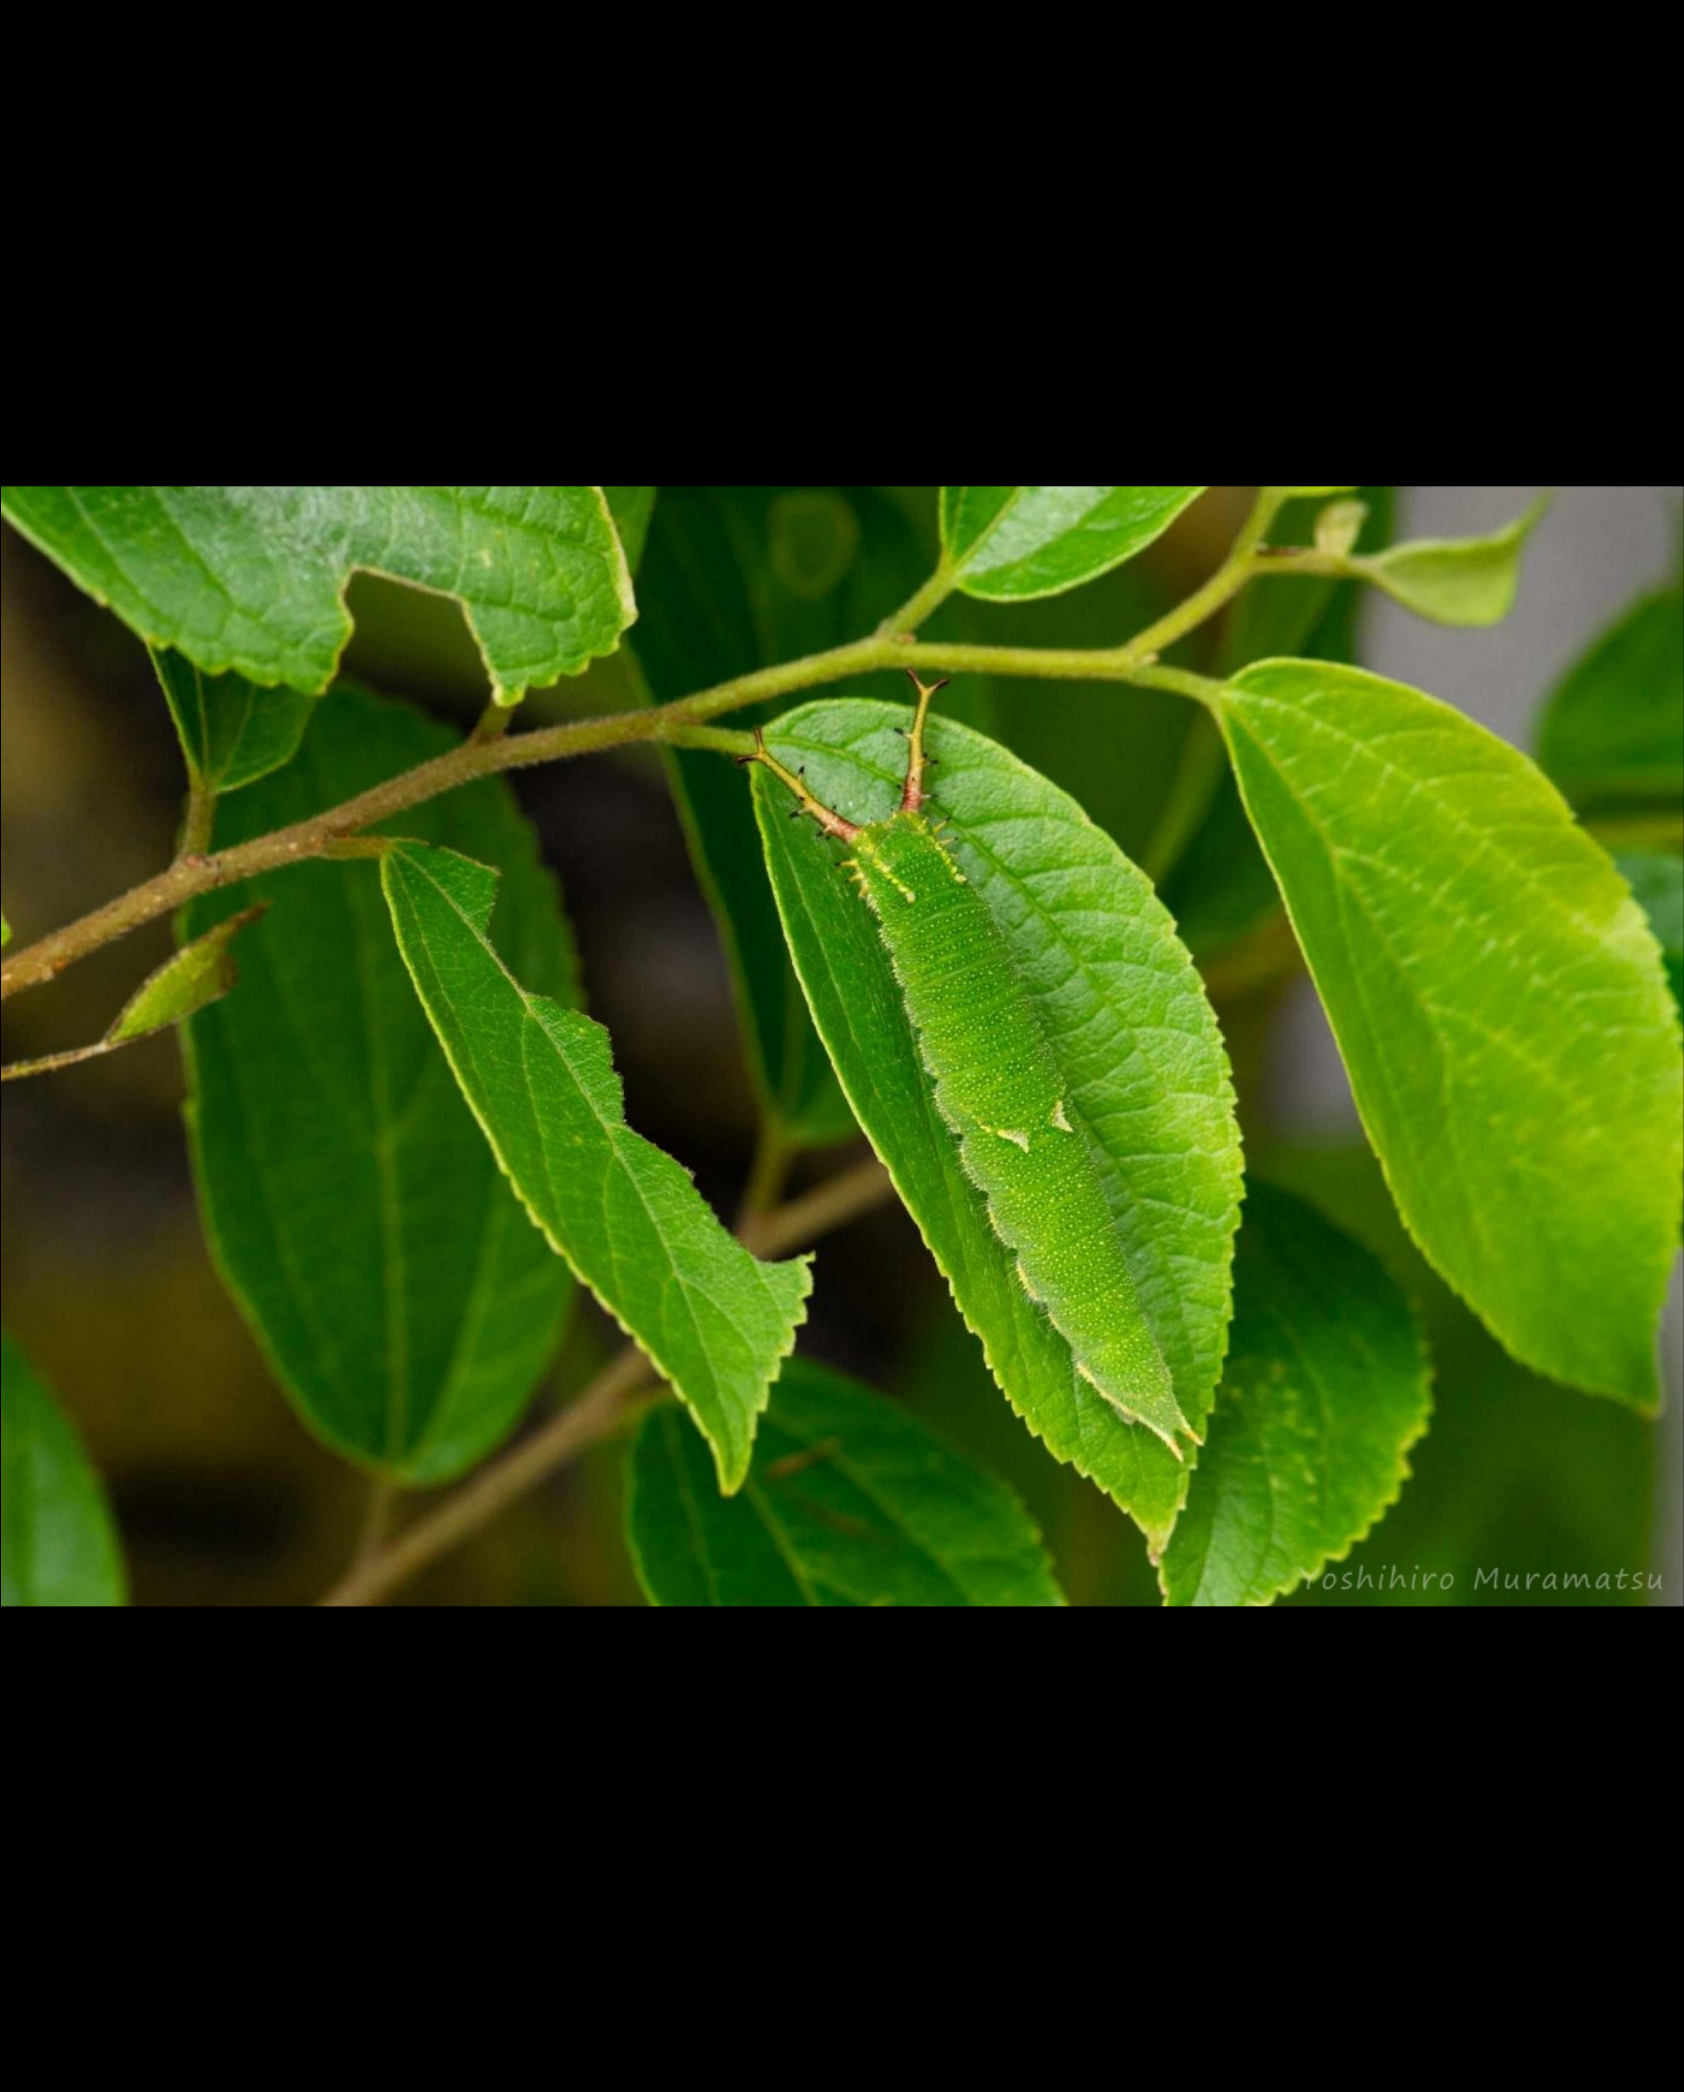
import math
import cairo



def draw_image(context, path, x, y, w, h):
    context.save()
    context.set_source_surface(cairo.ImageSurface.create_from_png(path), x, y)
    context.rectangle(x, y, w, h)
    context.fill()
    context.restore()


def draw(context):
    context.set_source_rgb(0, 0, 0)
    context.paint()
    draw_image(context, "images/1.png", 1, 486, 1683, 1121)


surface = cairo.ImageSurface(cairo.Format.RGB24, 1684, 2092)
context = cairo.Context(surface)
options = cairo.FontOptions()
options.set_hint_metrics(cairo.HintMetrics.OFF)
options.set_hint_style(cairo.HintStyle.NONE)
context.set_font_options(options)
context.set_miter_limit(4)
draw(context)
surface.write_to_png("out.png")
